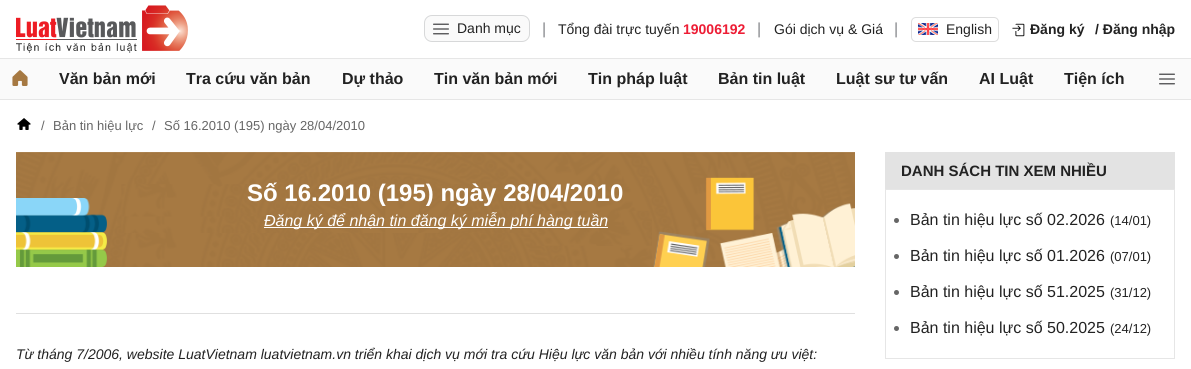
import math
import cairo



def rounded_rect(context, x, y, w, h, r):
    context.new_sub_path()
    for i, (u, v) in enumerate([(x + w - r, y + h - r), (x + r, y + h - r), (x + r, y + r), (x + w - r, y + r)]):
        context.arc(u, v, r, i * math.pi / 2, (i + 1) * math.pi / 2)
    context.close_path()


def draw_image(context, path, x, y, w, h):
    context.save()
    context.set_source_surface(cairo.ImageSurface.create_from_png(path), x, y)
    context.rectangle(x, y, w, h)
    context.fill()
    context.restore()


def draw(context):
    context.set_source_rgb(1, 1, 1)
    context.paint()
    context.set_source_rgb(230 / 255, 230 / 255, 230 / 255)
    context.rectangle(0, 58, 1191, 1)
    context.fill()
    draw_image(context, "images/1.png", 16, 5, 172, 48)
    context.set_source_rgb(250 / 255, 250 / 255, 250 / 255)
    rounded_rect(context, 424.5, 15.5, 105, 26, 7.5)
    context.fill_preserve()
    context.set_source_rgb(215 / 255, 216 / 255, 217 / 255)
    context.set_line_width(1)
    context.stroke()
    draw_image(context, "images/2.png", 433, 23, 16, 12)
    rounded_rect(context, 911.5, 17.5, 87, 24, 4.5)
    context.set_source_rgb(221 / 255, 221 / 255, 221 / 255)
    context.stroke()
    draw_image(context, "images/3.png", 918, 23, 20, 12)
    draw_image(context, "images/4.png", 1012, 23, 13, 14)
    context.set_source_rgb(250 / 255, 250 / 255, 250 / 255)
    context.rectangle(0, 59, 1191, 40)
    context.fill()
    context.set_source_rgb(230 / 255, 230 / 255, 230 / 255)
    context.rectangle(0, 99, 1191, 1)
    context.fill()
    draw_image(context, "images/5.png", 12, 70, 16, 16)
    draw_image(context, "images/2.png", 1159, 73, 16, 12)
    draw_image(context, "images/6.png", 17, 118, 14, 12)
    draw_image(context, "images/7.png", 16, 152, 839, 115)
    context.set_source_rgb(1, 1, 1)
    context.rectangle(264, 227, 344, 1)
    context.fill()
    context.set_source_rgb(224 / 255, 224 / 255, 224 / 255)
    context.rectangle(16, 313, 839, 1)
    context.fill()
    context.set_source_rgb(227 / 255, 227 / 255, 227 / 255)
    context.rectangle(885, 152, 290, 37)
    context.fill()
    context.rectangle(885.5, 189.5, 289, 169)
    context.set_source_rgb(230 / 255, 230 / 255, 230 / 255)
    context.stroke()
    context.set_source_rgb(102 / 255, 102 / 255, 102 / 255)
    context.arc(896.5, 220.5, 2.5, 0, 2 * math.pi)
    context.fill()
    context.arc(896.5, 256.5, 2.5, 0, 2 * math.pi)
    context.fill()
    context.arc(896.5, 292.5, 2.5, 0, 2 * math.pi)
    context.fill()
    context.arc(896.5, 328.5, 2.5, 0, 2 * math.pi)
    context.fill()
    context.select_font_face("Liberation Sans")
    context.set_font_size(14)
    context.set_source_rgb(34 / 255, 34 / 255, 34 / 255)
    context.move_to(457, 33)
    context.show_text("Danh mục")
    context.set_font_size(16)
    context.set_source_rgb(133 / 255, 134 / 255, 138 / 255)
    context.move_to(542, 34)
    context.show_text("|")
    context.set_font_size(14)
    context.set_source_rgb(34 / 255, 34 / 255, 34 / 255)
    context.move_to(558, 34)
    context.show_text("Tổng đài trực tuyến")
    context.select_font_face("Liberation Sans", cairo.FontSlant.NORMAL, cairo.FontWeight.BOLD)
    context.set_source_rgb(237 / 255, 29 / 255, 53 / 255)
    context.move_to(683, 34)
    context.show_text("19006192")
    context.select_font_face("Liberation Sans")
    context.set_font_size(16)
    context.set_source_rgb(133 / 255, 134 / 255, 138 / 255)
    context.move_to(757, 34)
    context.show_text("|")
    context.set_font_size(14)
    context.set_source_rgb(34 / 255, 34 / 255, 34 / 255)
    context.move_to(774, 34)
    context.show_text("Gói dịch vụ & Giá")
    context.set_font_size(16)
    context.set_source_rgb(133 / 255, 134 / 255, 138 / 255)
    context.move_to(894, 34)
    context.show_text("|")
    context.set_font_size(14)
    context.set_source_rgb(34 / 255, 34 / 255, 34 / 255)
    context.move_to(946, 34)
    context.show_text("English")
    context.select_font_face("Liberation Sans", cairo.FontSlant.NORMAL, cairo.FontWeight.BOLD)
    context.move_to(1030, 34)
    context.show_text("Đăng ký")
    context.move_to(1095, 34)
    context.show_text("/ Đăng nhập")
    context.set_font_size(16)
    context.move_to(59, 84)
    context.show_text("Văn bản mới")
    context.move_to(186, 84)
    context.show_text("Tra cứu văn bản")
    context.move_to(342, 84)
    context.show_text("Dự thảo")
    context.move_to(434, 84)
    context.show_text("Tin văn bản mới")
    context.move_to(588, 84)
    context.show_text("Tin pháp luật")
    context.move_to(718, 84)
    context.show_text("Bản tin luật")
    context.move_to(836, 84)
    context.show_text("Luật sư tư vấn")
    context.move_to(979, 84)
    context.show_text("AI Luật")
    context.move_to(1064, 84)
    context.show_text("Tiện ích")
    context.select_font_face("Liberation Sans")
    context.set_font_size(13)
    context.set_source_rgb(102 / 255, 102 / 255, 102 / 255)
    context.move_to(41, 130)
    context.show_text("/")
    context.move_to(53, 130)
    context.show_text("Bản tin hiệu lực")
    context.move_to(152, 130)
    context.show_text("/")
    context.move_to(164, 130)
    context.show_text("Số 16.2010 (195) ngày 28/04/2010")
    context.select_font_face("Liberation Sans", cairo.FontSlant.NORMAL, cairo.FontWeight.BOLD)
    context.set_font_size(24)
    context.set_source_rgb(1, 1, 1)
    context.move_to(247, 201)
    context.show_text("Số 16.2010 (195) ngày 28/04/2010")
    context.select_font_face("Liberation Sans", cairo.FontSlant.ITALIC)
    context.set_font_size(16)
    context.move_to(264, 226)
    context.show_text("Đăng ký để nhận tin đăng ký miễn phí hàng tuần")
    context.set_font_size(14)
    context.set_source_rgb(34 / 255, 34 / 255, 34 / 255)
    context.move_to(16, 359)
    context.show_text("Từ tháng 7/2006, website LuatVietnam luatvietnam.vn triển khai dịch vụ mới tra cứu Hiệu lực văn bản với nhiều tính năng ưu việt:")
    context.select_font_face("Liberation Sans", cairo.FontSlant.NORMAL, cairo.FontWeight.BOLD)
    context.set_font_size(15)
    context.move_to(901, 176)
    context.show_text("DANH SÁCH TIN XEM NHIỀU")
    context.select_font_face("Liberation Sans")
    context.set_font_size(16)
    context.move_to(910, 225)
    context.show_text("Bản tin hiệu lực số 02.2026")
    context.set_font_size(13)
    context.move_to(1110, 225)
    context.show_text("(14/01)")
    context.set_font_size(16)
    context.move_to(910, 261)
    context.show_text("Bản tin hiệu lực số 01.2026")
    context.set_font_size(13)
    context.move_to(1110, 261)
    context.show_text("(07/01)")
    context.set_font_size(16)
    context.move_to(910, 297)
    context.show_text("Bản tin hiệu lực số 51.2025")
    context.set_font_size(13)
    context.move_to(1110, 297)
    context.show_text("(31/12)")
    context.set_font_size(16)
    context.move_to(910, 333)
    context.show_text("Bản tin hiệu lực số 50.2025")
    context.set_font_size(13)
    context.move_to(1110, 333)
    context.show_text("(24/12)")


surface = cairo.ImageSurface(cairo.Format.RGB24, 1191, 369)
context = cairo.Context(surface)
options = cairo.FontOptions()
options.set_hint_metrics(cairo.HintMetrics.OFF)
options.set_hint_style(cairo.HintStyle.NONE)
context.set_font_options(options)
context.set_miter_limit(4)
draw(context)
surface.write_to_png("out.png")
